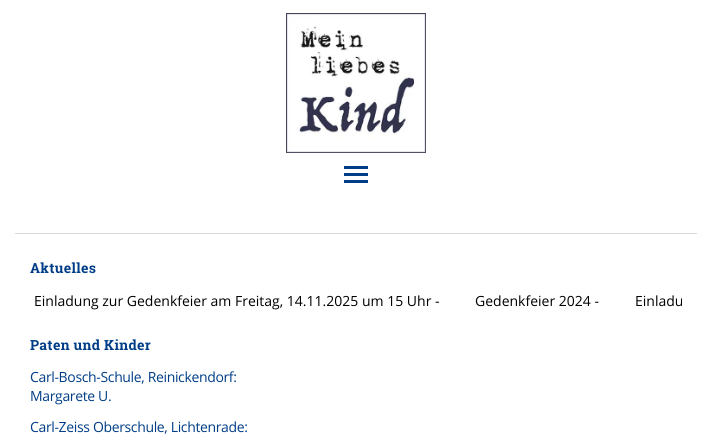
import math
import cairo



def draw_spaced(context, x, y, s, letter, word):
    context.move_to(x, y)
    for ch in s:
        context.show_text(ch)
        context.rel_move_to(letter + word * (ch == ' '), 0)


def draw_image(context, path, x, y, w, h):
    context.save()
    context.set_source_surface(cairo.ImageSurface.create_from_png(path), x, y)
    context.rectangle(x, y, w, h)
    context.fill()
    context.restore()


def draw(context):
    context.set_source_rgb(1, 1, 1)
    context.paint()
    draw_image(context, "images/1.png", 286, 13, 140, 140)
    context.set_source_rgb(0, 61 / 255, 134 / 255)
    context.rectangle(344, 166, 24, 3)
    context.fill()
    context.rectangle(344, 173, 24, 3)
    context.fill()
    context.rectangle(344, 180, 24, 3)
    context.fill()
    context.set_source_rgb(216 / 255, 216 / 255, 216 / 255)
    context.rectangle(15, 233, 682, 1)
    context.fill()
    context.select_font_face("Roboto Slab", cairo.FontSlant.NORMAL, cairo.FontWeight.BOLD)
    context.set_font_size(14)
    context.set_source_rgb(0, 61 / 255, 134 / 255)
    draw_spaced(context, 30, 273, "Aktuelles", 0.3, 0)
    context.select_font_face("Open Sans")
    context.set_source_rgb(0, 0, 0)
    context.move_to(34, 306)
    context.show_text("Einladung zur Gedenkfeier am Freitag, 14.11.2025 um 15 Uhr -")
    context.move_to(475, 306)
    context.show_text("Gedenkfeier 2024 -")
    context.save()
    context.rectangle(30, 290, 652, 21)
    context.clip()
    context.move_to(635, 306)
    context.show_text("Einladu")
    context.restore()
    context.select_font_face("Roboto Slab", cairo.FontSlant.NORMAL, cairo.FontWeight.BOLD)
    context.set_source_rgb(0, 61 / 255, 134 / 255)
    draw_spaced(context, 30, 350, "Paten und Kinder", 0.3, 0)
    context.select_font_face("Open Sans")
    draw_spaced(context, 30, 382, "Carl-Bosch-Schule, Reinickendorf:", -0.35, 0)
    draw_spaced(context, 30, 401, "Margarete U.", -0.35, 0)
    draw_spaced(context, 30, 432, "Carl-Zeiss Oberschule, Lichtenrade:", -0.35, 0)


surface = cairo.ImageSurface(cairo.Format.RGB24, 712, 445)
context = cairo.Context(surface)
options = cairo.FontOptions()
options.set_hint_metrics(cairo.HintMetrics.OFF)
options.set_hint_style(cairo.HintStyle.NONE)
context.set_font_options(options)
context.set_miter_limit(4)
draw(context)
surface.write_to_png("out.png")
